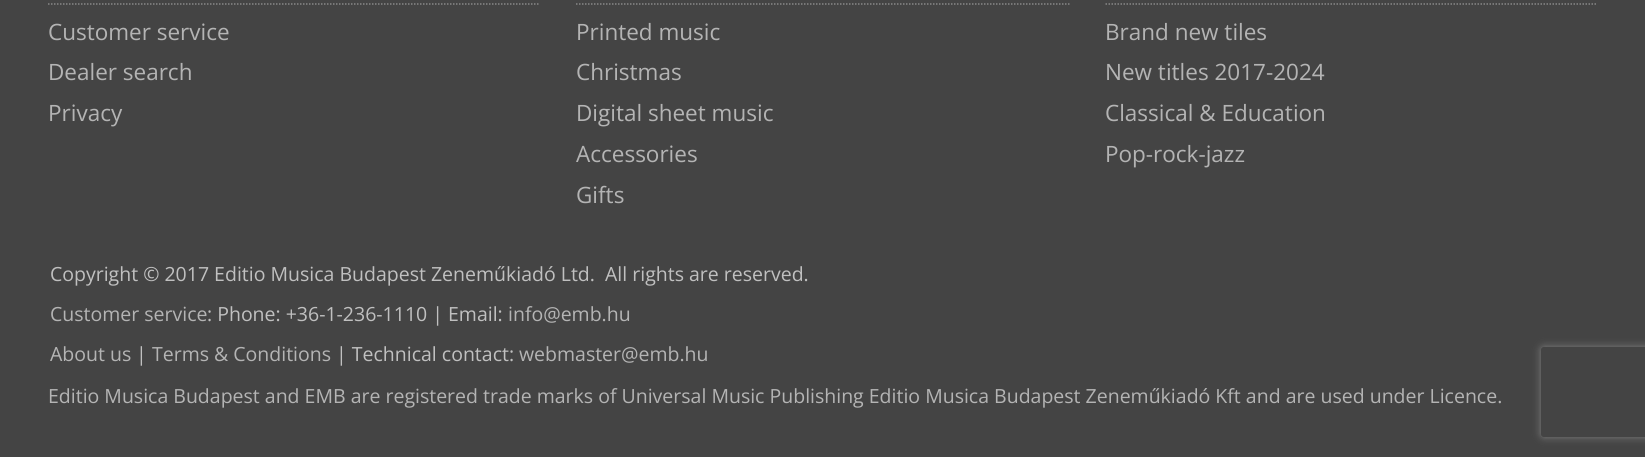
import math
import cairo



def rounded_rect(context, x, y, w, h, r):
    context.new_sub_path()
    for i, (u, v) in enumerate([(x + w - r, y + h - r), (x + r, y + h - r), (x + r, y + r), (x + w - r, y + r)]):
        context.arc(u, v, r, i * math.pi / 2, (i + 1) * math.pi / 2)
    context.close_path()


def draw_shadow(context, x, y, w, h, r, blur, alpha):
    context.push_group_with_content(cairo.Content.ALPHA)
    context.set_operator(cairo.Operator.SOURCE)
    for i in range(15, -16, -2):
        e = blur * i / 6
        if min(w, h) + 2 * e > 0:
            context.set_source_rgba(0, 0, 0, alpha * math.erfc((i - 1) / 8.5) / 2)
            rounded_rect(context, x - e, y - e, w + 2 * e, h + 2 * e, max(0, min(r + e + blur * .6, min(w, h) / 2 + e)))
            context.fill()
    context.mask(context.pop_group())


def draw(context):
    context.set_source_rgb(68 / 255, 68 / 255, 68 / 255)
    context.paint()
    context.new_path()
    context.move_to(48, 4)
    context.line_to(540, 4)
    context.set_source_rgb(136 / 255, 136 / 255, 136 / 255)
    context.set_line_width(1.5)
    context.set_dash([1.5, 1.5])
    context.stroke()
    context.new_path()
    context.move_to(576, 4)
    context.line_to(1069.5, 4)
    context.stroke()
    context.new_path()
    context.move_to(1105.5, 4)
    context.line_to(1597.5, 4)
    context.stroke()
    context.save()
    context.set_fill_rule(cairo.FillRule.EVEN_ODD)
    context.new_path()
    context.move_to(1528, 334)
    context.line_to(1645, 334)
    context.line_to(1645, 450)
    context.line_to(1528, 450)
    context.close_path()
    context.move_to(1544, 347)
    context.line_to(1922, 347)
    context.curve_to(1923.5, 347, 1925, 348.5, 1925, 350)
    context.line_to(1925, 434)
    context.curve_to(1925, 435.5, 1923.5, 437, 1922, 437)
    context.line_to(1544, 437)
    context.curve_to(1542.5, 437, 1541, 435.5, 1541, 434)
    context.line_to(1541, 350)
    context.curve_to(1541, 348.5, 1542.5, 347, 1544, 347)
    context.close_path()
    context.clip()
    context.set_source_rgb(128 / 255, 128 / 255, 128 / 255)
    draw_shadow(context, 1541, 347, 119, 90, 3, 4, 1)
    context.restore()
    context.select_font_face("Open Sans")
    context.set_font_size(22.5)
    context.set_source_rgb(180 / 255, 180 / 255, 180 / 255)
    context.move_to(48, 40)
    context.show_text("Customer service")
    context.move_to(48, 80)
    context.show_text("Dealer search")
    context.move_to(48, 121)
    context.show_text("Privacy")
    context.move_to(576, 40)
    context.show_text("Printed music")
    context.move_to(576, 80)
    context.show_text("Christmas")
    context.move_to(576, 121)
    context.show_text("Digital sheet music")
    context.move_to(576, 162)
    context.show_text("Accessories")
    context.move_to(576, 203)
    context.show_text("Gifts")
    context.move_to(1105, 40)
    context.show_text("Brand new tiles")
    context.move_to(1105, 80)
    context.show_text("New titles 2017-2024")
    context.move_to(1105, 121)
    context.show_text("Classical & Education")
    context.move_to(1105, 162)
    context.show_text("Pop-rock-jazz")
    context.set_font_size(19.5)
    context.set_source_rgb(192 / 255, 192 / 255, 192 / 255)
    context.move_to(50, 281)
    context.show_text("Copyright © 2017 Editio Musica Budapest Zeneműkiadó Ltd.  All rights are reserved.")
    context.set_source_rgb(180 / 255, 180 / 255, 180 / 255)
    context.move_to(50, 321)
    context.show_text("Customer service")
    context.set_source_rgb(192 / 255, 192 / 255, 192 / 255)
    context.move_to(207, 321)
    context.show_text(": Phone: +36-1-236-1110 | Email:")
    context.set_source_rgb(180 / 255, 180 / 255, 180 / 255)
    context.move_to(508, 321)
    context.show_text("info@emb.hu")
    context.move_to(50, 361)
    context.show_text("About us")
    context.set_source_rgb(192 / 255, 192 / 255, 192 / 255)
    context.move_to(136, 361)
    context.show_text("|")
    context.set_source_rgb(180 / 255, 180 / 255, 180 / 255)
    context.move_to(152, 361)
    context.show_text("Terms & Conditions")
    context.set_source_rgb(192 / 255, 192 / 255, 192 / 255)
    context.move_to(336, 361)
    context.show_text("| Technical contact:")
    context.set_source_rgb(180 / 255, 180 / 255, 180 / 255)
    context.move_to(519, 361)
    context.show_text("webmaster@emb.hu")
    context.move_to(48, 403)
    context.show_text("Editio Musica Budapest and EMB are registered trade marks of Universal Music Publishing Editio Musica Budapest Zeneműkiadó Kft and are used under Licence.")


surface = cairo.ImageSurface(cairo.Format.RGB24, 1645, 457)
context = cairo.Context(surface)
options = cairo.FontOptions()
options.set_hint_metrics(cairo.HintMetrics.OFF)
options.set_hint_style(cairo.HintStyle.NONE)
context.set_font_options(options)
context.set_miter_limit(4)
draw(context)
surface.write_to_png("out.png")
